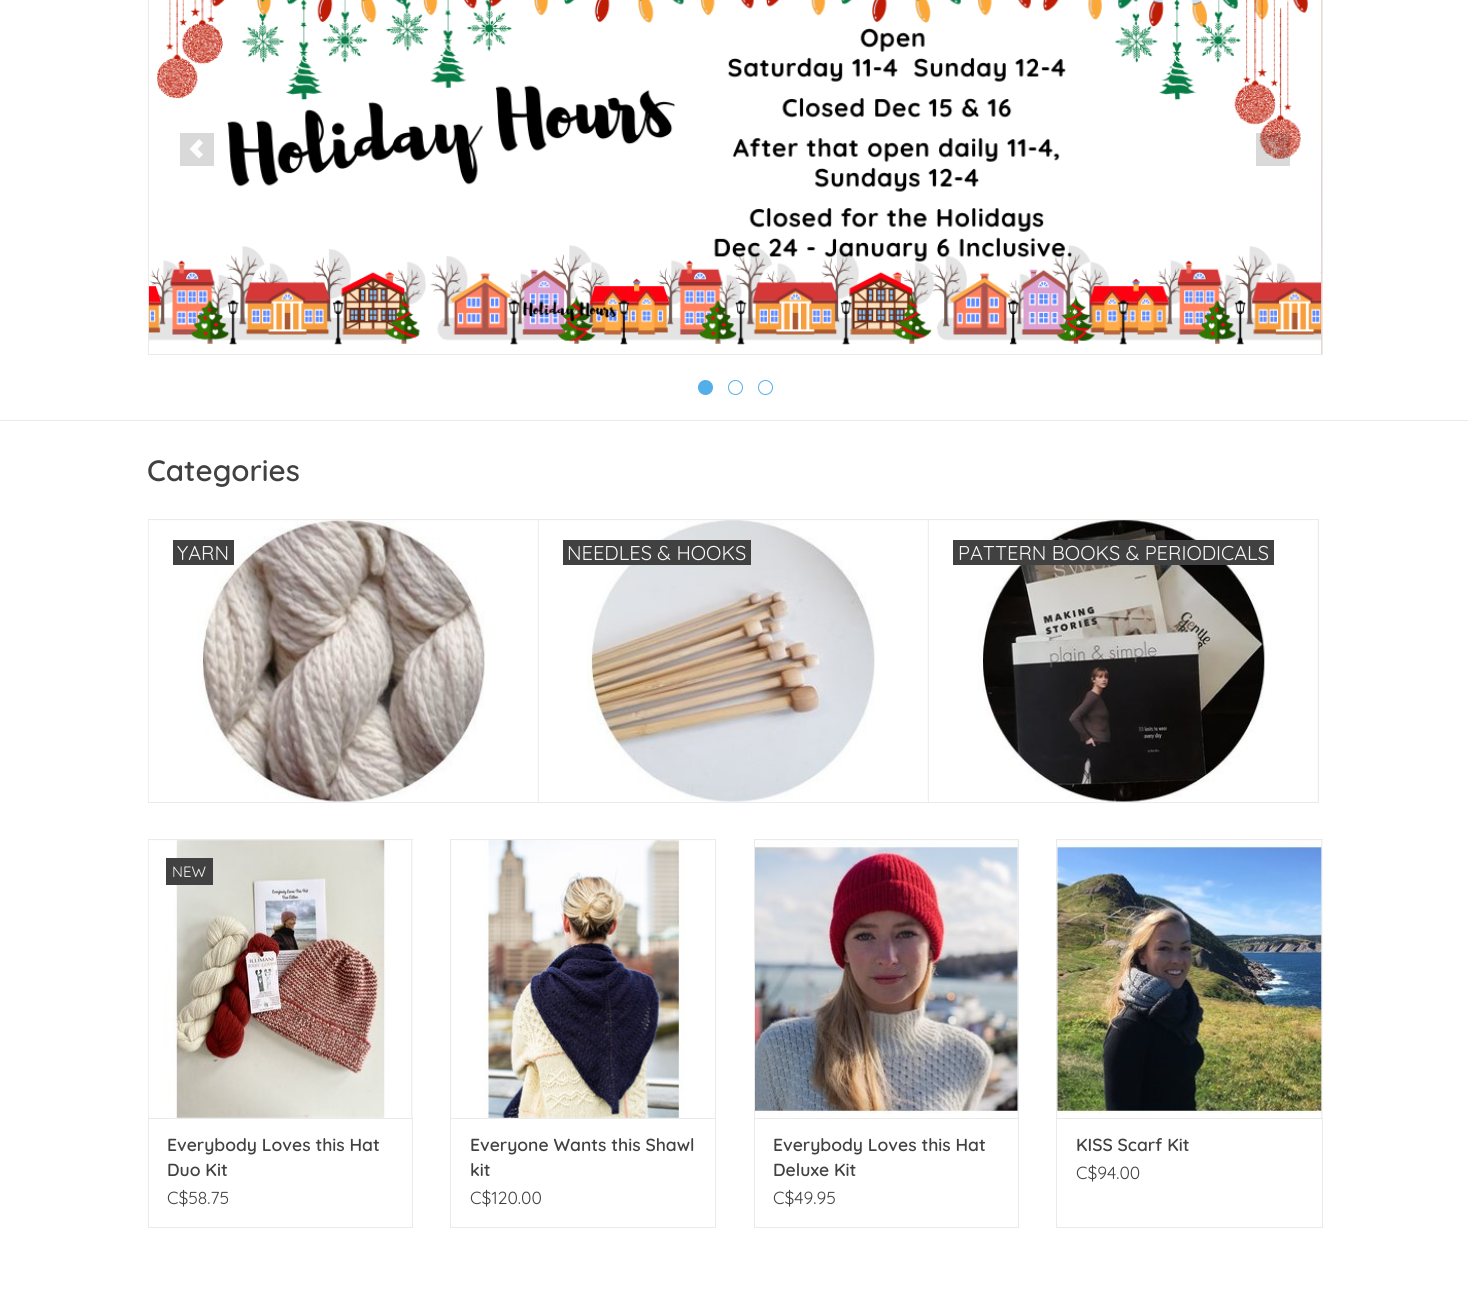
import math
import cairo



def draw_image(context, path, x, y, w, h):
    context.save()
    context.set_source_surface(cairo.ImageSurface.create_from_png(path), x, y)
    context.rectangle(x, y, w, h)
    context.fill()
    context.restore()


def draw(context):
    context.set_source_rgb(1, 1, 1)
    context.paint()
    context.rectangle(148.5, -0.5, 1174, 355)
    context.set_source_rgb(234 / 255, 234 / 255, 234 / 255)
    context.set_line_width(1)
    context.stroke()
    draw_image(context, "images/1.png", 148, 0, 1174, 354)
    draw_image(context, "images/2.png", 1321, 0, 1, 354)
    context.set_source_rgb(217 / 255, 217 / 255, 217 / 255)
    context.rectangle(180, 133, 34, 33)
    context.fill()
    context.set_source_rgb(253 / 255, 253 / 255, 253 / 255)
    context.new_path()
    context.move_to(189.5, 149)
    context.line_to(199, 158.5)
    context.line_to(203, 154.5)
    context.line_to(197.5, 149)
    context.line_to(203, 143)
    context.line_to(199, 139)
    context.close_path()
    context.fill()
    context.set_source_rgba(65 / 255, 65 / 255, 65 / 255, 0.2)
    context.rectangle(1256, 133, 34, 33)
    context.fill()
    context.set_source_rgba(247 / 255, 247 / 255, 247 / 255, 0.2)
    context.new_path()
    context.move_to(1267, 155.5)
    context.line_to(1273, 149.5)
    context.line_to(1267, 144)
    context.line_to(1271, 140)
    context.line_to(1281, 149.5)
    context.line_to(1271, 159.5)
    context.close_path()
    context.fill()
    context.set_source_rgb(84 / 255, 175 / 255, 233 / 255)
    context.arc(705.5, 387.5, 7, 0, 2 * math.pi)
    context.fill_preserve()
    context.stroke()
    context.arc(735.5, 387.5, 7, 0, 2 * math.pi)
    context.stroke()
    context.arc(765.5, 387.5, 7, 0, 2 * math.pi)
    context.stroke()
    context.set_source_rgb(234 / 255, 234 / 255, 234 / 255)
    context.rectangle(0, 420, 1468, 1)
    context.fill()
    context.rectangle(148.5, 519.5, 390, 283)
    context.stroke()
    context.set_source_rgb(247 / 255, 247 / 255, 247 / 255)
    context.rectangle(149, 520, 389, 281)
    context.fill()
    draw_image(context, "images/3.png", 148, 520, 390, 282)
    context.set_source_rgb(65 / 255, 65 / 255, 65 / 255)
    context.rectangle(229, 540, 5, 25)
    context.fill()
    context.rectangle(173, 540, 56, 25)
    context.fill()
    context.rectangle(538.5, 519.5, 390, 283)
    context.set_source_rgb(234 / 255, 234 / 255, 234 / 255)
    context.stroke()
    context.set_source_rgb(247 / 255, 247 / 255, 247 / 255)
    context.rectangle(539, 520, 389, 281)
    context.fill()
    draw_image(context, "images/4.png", 538, 520, 390, 282)
    context.set_source_rgb(65 / 255, 65 / 255, 65 / 255)
    context.rectangle(746, 540, 5, 25)
    context.fill()
    context.rectangle(563, 540, 183, 25)
    context.fill()
    context.rectangle(928.5, 519.5, 390, 283)
    context.set_source_rgb(234 / 255, 234 / 255, 234 / 255)
    context.stroke()
    context.set_source_rgb(247 / 255, 247 / 255, 247 / 255)
    context.rectangle(929, 520, 389, 281)
    context.fill()
    draw_image(context, "images/5.png", 928, 520, 390, 282)
    context.set_source_rgb(65 / 255, 65 / 255, 65 / 255)
    context.rectangle(1269, 540, 5, 25)
    context.fill()
    context.rectangle(953, 540, 316, 25)
    context.fill()
    context.set_source_rgb(247 / 255, 247 / 255, 247 / 255)
    context.rectangle(149, 840, 264, 278)
    context.fill()
    context.set_source_rgb(234 / 255, 234 / 255, 234 / 255)
    context.rectangle(148, 839, 265, 1)
    context.fill()
    context.rectangle(411, 839, 1, 279)
    context.fill()
    context.rectangle(148, 839, 1, 279)
    context.fill()
    draw_image(context, "images/6.png", 148, 840, 264, 278)
    context.set_source_rgb(65 / 255, 65 / 255, 65 / 255)
    context.rectangle(166, 858, 47, 27)
    context.fill()
    context.rectangle(148.5, 1118.5, 264, 109)
    context.set_source_rgb(234 / 255, 234 / 255, 234 / 255)
    context.stroke()
    context.set_source_rgb(247 / 255, 247 / 255, 247 / 255)
    context.rectangle(451, 840, 264, 278)
    context.fill()
    context.set_source_rgb(234 / 255, 234 / 255, 234 / 255)
    context.rectangle(450, 839, 266, 1)
    context.fill()
    context.rectangle(715, 839, 1, 279)
    context.fill()
    context.rectangle(450, 839, 1, 279)
    context.fill()
    draw_image(context, "images/7.png", 451, 840, 264, 278)
    context.rectangle(450.5, 1118.5, 265, 109)
    context.stroke()
    context.set_source_rgb(247 / 255, 247 / 255, 247 / 255)
    context.rectangle(755, 840, 263, 278)
    context.fill()
    context.set_source_rgb(234 / 255, 234 / 255, 234 / 255)
    context.rectangle(754, 839, 265, 1)
    context.fill()
    context.rectangle(1018, 839, 1, 279)
    context.fill()
    context.rectangle(754, 839, 1, 279)
    context.fill()
    draw_image(context, "images/8.png", 755, 840, 263, 278)
    context.rectangle(754.5, 1118.5, 264, 109)
    context.stroke()
    context.set_source_rgb(247 / 255, 247 / 255, 247 / 255)
    context.rectangle(1057, 840, 266, 278)
    context.fill()
    context.set_source_rgb(234 / 255, 234 / 255, 234 / 255)
    context.rectangle(1056, 839, 267, 1)
    context.fill()
    context.rectangle(1321, 839, 1, 279)
    context.fill()
    context.rectangle(1056, 839, 1, 279)
    context.fill()
    draw_image(context, "images/9.png", 1057, 840, 265, 278)
    context.rectangle(1056.5, 1118.5, 266, 109)
    context.stroke()
    context.select_font_face("Quicksand SemiBold")
    context.set_font_size(29.5)
    context.set_source_rgb(65 / 255, 65 / 255, 65 / 255)
    context.move_to(147, 481)
    context.show_text("Categories")
    context.select_font_face("Quicksand")
    context.set_font_size(20)
    context.set_source_rgb(247 / 255, 247 / 255, 247 / 255)
    context.move_to(177, 560)
    context.show_text("YARN")
    context.move_to(567, 560)
    context.show_text("NEEDLES & HOOKS")
    context.move_to(958, 560)
    context.show_text("PATTERN BOOKS & PERIODICALS")
    context.set_font_size(15)
    context.move_to(172, 877)
    context.show_text("NEW")
    context.select_font_face("Quicksand SemiBold")
    context.set_font_size(17.5)
    context.set_source_rgb(65 / 255, 65 / 255, 65 / 255)
    context.move_to(167, 1151)
    context.show_text("Everybody Loves this Hat")
    context.move_to(167, 1176)
    context.show_text("Duo Kit")
    context.select_font_face("Quicksand")
    context.move_to(167, 1204)
    context.show_text("C$58.75")
    context.select_font_face("Quicksand SemiBold")
    context.move_to(470, 1151)
    context.show_text("Everyone Wants this Shawl")
    context.move_to(470, 1176)
    context.show_text("kit")
    context.select_font_face("Quicksand")
    context.move_to(470, 1204)
    context.show_text("C$120.00")
    context.select_font_face("Quicksand SemiBold")
    context.move_to(773, 1151)
    context.show_text("Everybody Loves this Hat")
    context.move_to(773, 1176)
    context.show_text("Deluxe Kit")
    context.select_font_face("Quicksand")
    context.move_to(773, 1204)
    context.show_text("C$49.95")
    context.select_font_face("Quicksand SemiBold")
    context.move_to(1076, 1151)
    context.show_text("KISS Scarf Kit")
    context.select_font_face("Quicksand")
    context.move_to(1076, 1179)
    context.show_text("C$94.00")


surface = cairo.ImageSurface(cairo.Format.RGB24, 1468, 1305)
context = cairo.Context(surface)
options = cairo.FontOptions()
options.set_hint_metrics(cairo.HintMetrics.OFF)
options.set_hint_style(cairo.HintStyle.NONE)
context.set_font_options(options)
context.set_miter_limit(4)
draw(context)
surface.write_to_png("out.png")
